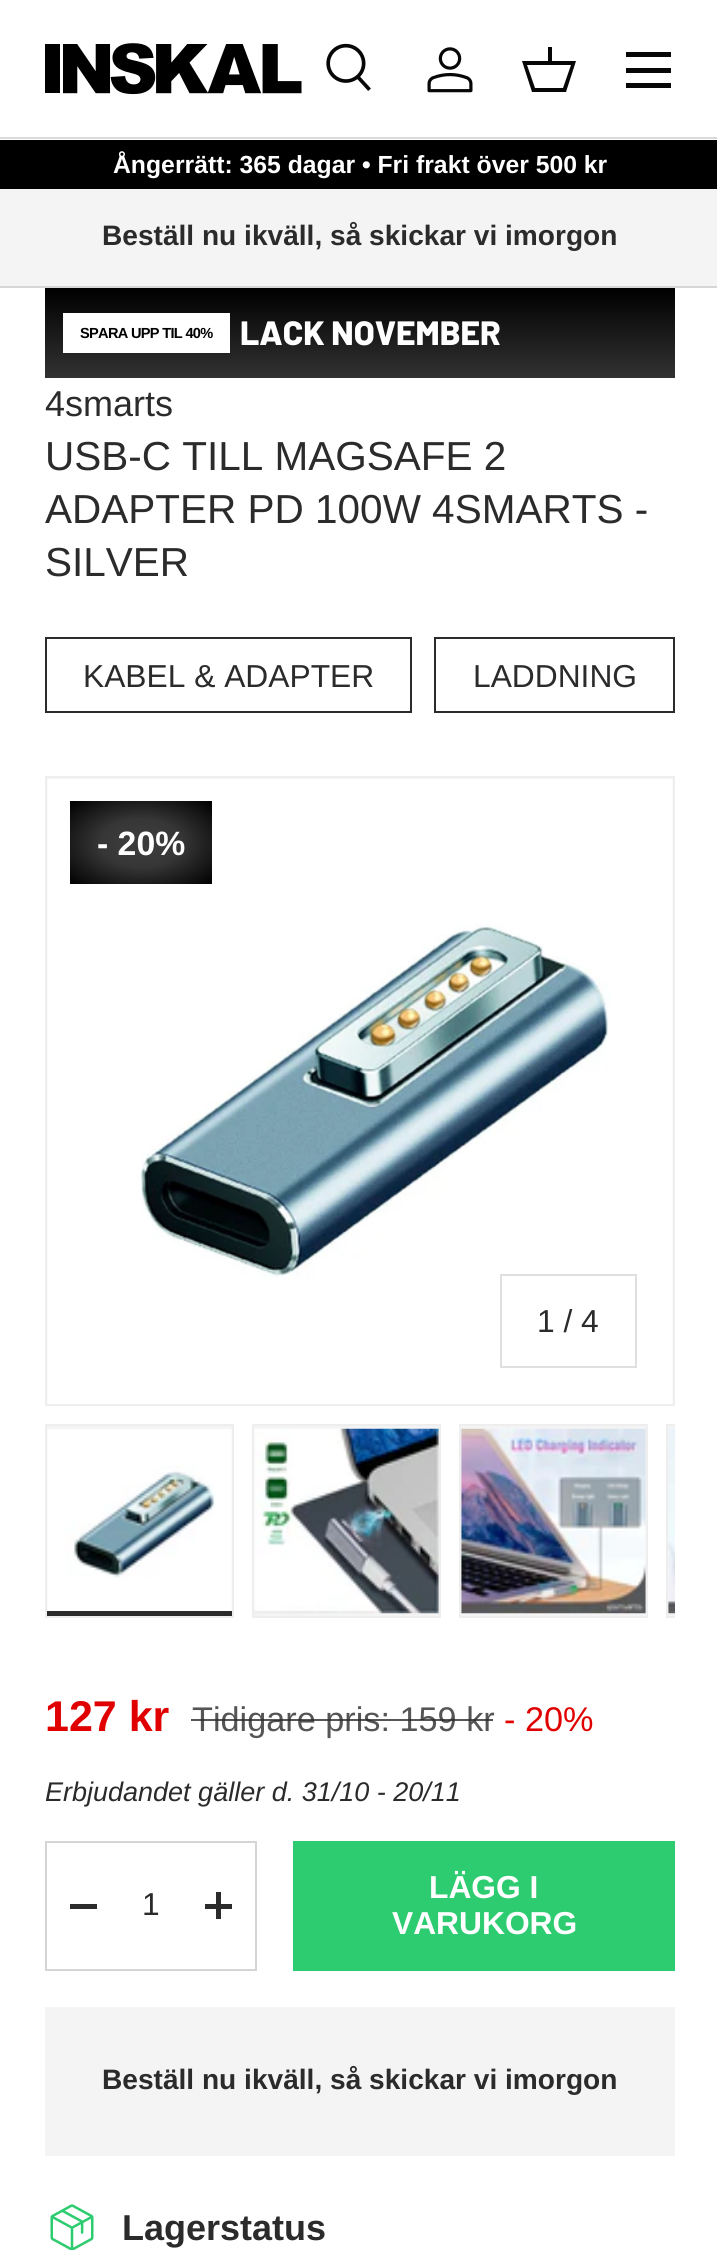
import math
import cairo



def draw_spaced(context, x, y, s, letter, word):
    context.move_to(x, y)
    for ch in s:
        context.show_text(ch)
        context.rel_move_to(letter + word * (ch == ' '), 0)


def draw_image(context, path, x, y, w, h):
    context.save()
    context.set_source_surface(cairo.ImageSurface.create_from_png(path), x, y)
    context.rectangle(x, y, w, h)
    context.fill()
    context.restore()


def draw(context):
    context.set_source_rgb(1, 1, 1)
    context.paint()
    context.set_source_rgb(218 / 255, 218 / 255, 218 / 255)
    context.rectangle(0, 137, 717, 2)
    context.fill()
    draw_image(context, "images/1.png", 45, 43, 257, 52)
    draw_image(context, "images/2.png", 326, 43, 45, 48)
    draw_image(context, "images/3.png", 427, 47, 46, 46)
    context.set_source_rgb(7 / 255, 7 / 255, 7 / 255)
    context.new_path()
    context.move_to(548, 61)
    context.line_to(548, 47)
    context.line_to(552, 47)
    context.line_to(552, 61)
    context.line_to(576, 61)
    context.line_to(566, 92)
    context.line_to(532, 92)
    context.line_to(522, 61)
    context.close_path()
    context.move_to(527, 65)
    context.line_to(535, 88)
    context.line_to(563, 88)
    context.line_to(571, 65)
    context.close_path()
    context.fill()
    context.rectangle(626, 52, 45, 5)
    context.fill()
    context.rectangle(626, 83, 45, 5)
    context.fill()
    context.rectangle(626, 68, 45, 5)
    context.fill()
    context.set_source_rgb(0, 0, 0)
    context.rectangle(0, 140, 717, 49)
    context.fill()
    context.set_source_rgb(244 / 255, 244 / 255, 244 / 255)
    context.rectangle(0, 189, 717, 97)
    context.fill()
    context.set_source_rgb(214 / 255, 214 / 255, 214 / 255)
    context.rectangle(0, 286, 717, 2)
    context.fill()
    gradient = cairo.LinearGradient(360, 378, 360, 288)
    gradient.add_color_stop_rgba(0, 50 / 255, 50 / 255, 50 / 255, 1)
    gradient.add_color_stop_rgba(1, 0, 0, 0, 1)
    context.set_source(gradient)
    context.rectangle(45, 288, 630, 90)
    context.fill()
    context.set_source_rgb(1, 1, 1)
    context.rectangle(63, 313, 167, 40)
    context.fill()
    context.rectangle(46, 638, 365, 74)
    context.set_source_rgb(42 / 255, 43 / 255, 42 / 255)
    context.stroke()
    context.rectangle(435, 638, 239, 74)
    context.stroke()
    context.set_source_rgb(244 / 255, 244 / 255, 244 / 255)
    context.rectangle(46, 777, 628, 628)
    context.fill_preserve()
    context.set_source_rgb(238 / 255, 238 / 255, 238 / 255)
    context.stroke()
    draw_image(context, "images/4.png", 47, 779, 626, 625)
    gradient = cairo.RadialGradient(0, 0, 0, 0, 0, 1)
    gradient.set_matrix(cairo.Matrix(1 / 100, 0, 0, 1 / 59, -1 * 141 / 100, -1 * 843 / 59))
    gradient.add_color_stop_rgba(0.18, 59 / 255, 59 / 255, 59 / 255, 1)
    gradient.add_color_stop_rgba(0.41, 54 / 255, 54 / 255, 54 / 255, 1)
    gradient.add_color_stop_rgba(1, 0, 0, 0, 1)
    context.set_source(gradient)
    context.rectangle(70, 801, 142, 83)
    context.fill()
    context.rectangle(501, 1275, 135, 92)
    context.set_source_rgb(223 / 255, 223 / 255, 223 / 255)
    context.stroke()
    context.set_source_rgb(244 / 255, 244 / 255, 244 / 255)
    context.rectangle(47, 1426, 185, 185)
    context.fill()
    context.rectangle(46, 1425, 187, 192)
    context.set_source_rgb(238 / 255, 238 / 255, 238 / 255)
    context.stroke()
    draw_image(context, "images/5.png", 47, 1429, 185, 182)
    context.set_source_rgb(42 / 255, 43 / 255, 42 / 255)
    context.rectangle(47, 1611, 185, 5)
    context.fill()
    context.set_source_rgb(244 / 255, 244 / 255, 244 / 255)
    context.rectangle(253, 1425, 187, 192)
    context.fill_preserve()
    context.set_source_rgb(238 / 255, 238 / 255, 238 / 255)
    context.stroke()
    draw_image(context, "images/6.png", 254, 1428, 185, 186)
    context.set_source_rgb(244 / 255, 244 / 255, 244 / 255)
    context.rectangle(460, 1425, 187, 192)
    context.fill_preserve()
    context.set_source_rgb(238 / 255, 238 / 255, 238 / 255)
    context.stroke()
    draw_image(context, "images/7.png", 461, 1428, 185, 186)
    context.set_source_rgb(244 / 255, 244 / 255, 244 / 255)
    context.rectangle(668, 1426, 7, 190)
    context.fill()
    context.save()
    context.rectangle(45, 1424, 630, 207)
    context.clip()
    context.rectangle(667, 1425, 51, 192)
    context.set_source_rgb(238 / 255, 238 / 255, 238 / 255)
    context.stroke()
    context.restore()
    draw_image(context, "images/8.png", 668, 1429, 7, 185)
    context.rectangle(46, 1842, 210, 128)
    context.set_source_rgb(212 / 255, 213 / 255, 212 / 255)
    context.stroke()
    context.set_source_rgb(42 / 255, 43 / 255, 42 / 255)
    context.rectangle(70, 1904, 27, 5)
    context.fill()
    context.rectangle(205, 1904, 27, 5)
    context.fill()
    context.rectangle(216, 1892, 5, 27)
    context.fill()
    gradient = cairo.LinearGradient(-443, 1769, 654, 2043)
    gradient.add_color_stop_rgba(0.6, 89 / 255, 215 / 255, 142 / 255, 1)
    gradient.add_color_stop_rgba(0.6, 46 / 255, 204 / 255, 113 / 255, 1)
    gradient.add_color_stop_rgba(1, 46 / 255, 204 / 255, 113 / 255, 1)
    context.set_source(gradient)
    context.rectangle(295, 1843, 378, 126)
    context.fill()
    context.rectangle(294, 1842, 380, 128)
    context.set_source_rgb(46 / 255, 204 / 255, 113 / 255)
    context.stroke()
    context.set_source_rgb(244 / 255, 244 / 255, 244 / 255)
    context.rectangle(45, 2007, 630, 149)
    context.fill()
    draw_image(context, "images/9.png", 50, 2204, 44, 46)
    context.select_font_face("Liberation Sans", cairo.FontSlant.NORMAL, cairo.FontWeight.BOLD)
    context.set_font_size(24.75)
    context.set_source_rgb(1, 1, 1)
    context.move_to(113, 173)
    context.show_text("Ångerrätt: 365 dagar • Fri frakt över 500 kr")
    context.set_font_size(28.1)
    context.set_source_rgb(42 / 255, 43 / 255, 42 / 255)
    context.move_to(102, 245)
    context.show_text("Beställ nu ikväll, så skickar vi imorgon")
    context.set_font_size(14.6)
    context.set_source_rgb(0, 0, 0)
    draw_spaced(context, 80, 338, "SPARA UPP TIL 40%", -0.7, 0)
    context.select_font_face("Barlow ExtraBold")
    context.set_font_size(33.75)
    context.set_source_rgb(1, 1, 1)
    context.move_to(240, 345)
    context.show_text("LACK NOVEMBER")
    context.select_font_face("Liberation Sans")
    context.set_font_size(36)
    context.set_source_rgb(42 / 255, 43 / 255, 42 / 255)
    context.move_to(45, 416)
    context.show_text("4smarts")
    context.set_font_size(40.5)
    context.move_to(45, 470)
    context.show_text("USB-C TILL MAGSAFE 2")
    context.move_to(45, 523)
    context.show_text("ADAPTER PD 100W 4SMARTS -")
    context.move_to(45, 576)
    context.show_text("SILVER")
    context.set_font_size(31.75)
    context.move_to(83, 687)
    context.show_text("KABEL & ADAPTER")
    context.move_to(473, 687)
    context.show_text("LADDNING")
    context.select_font_face("Liberation Sans", cairo.FontSlant.NORMAL, cairo.FontWeight.BOLD)
    context.set_font_size(33.75)
    context.set_source_rgb(1, 1, 1)
    context.move_to(97, 855)
    context.show_text("- 20%")
    context.select_font_face("Liberation Sans")
    context.set_font_size(31.75)
    context.set_source_rgb(42 / 255, 43 / 255, 42 / 255)
    context.move_to(537, 1332)
    context.show_text("1 / 4")
    context.select_font_face("Liberation Sans", cairo.FontSlant.NORMAL, cairo.FontWeight.BOLD)
    context.set_font_size(43)
    context.set_source_rgb(224 / 255, 0, 0)
    context.move_to(45, 1731)
    context.show_text("127 kr")
    context.select_font_face("Liberation Sans")
    context.set_font_size(34.25)
    context.set_source_rgb(85 / 255, 85 / 255, 85 / 255)
    context.move_to(192, 1731)
    context.show_text("Tidigare pris: 159 kr")
    context.set_source_rgba(42 / 255, 43 / 255, 42 / 255, 0.8)
    context.rectangle(191, 1719, 302, 2)
    context.fill()
    context.set_source_rgb(224 / 255, 0, 0)
    context.move_to(504, 1731)
    context.show_text("- 20%")
    context.select_font_face("Liberation Sans", cairo.FontSlant.ITALIC)
    context.set_font_size(27)
    context.set_source_rgb(42 / 255, 43 / 255, 42 / 255)
    context.move_to(45, 1801)
    context.show_text("Erbjudandet gäller d. 31/10 - 20/11")
    context.select_font_face("Liberation Sans")
    context.set_font_size(31.75)
    context.move_to(142, 1915)
    context.show_text("1")
    context.select_font_face("Liberation Sans", cairo.FontSlant.NORMAL, cairo.FontWeight.BOLD)
    context.set_source_rgb(1, 1, 1)
    context.move_to(429, 1898)
    context.show_text("LÄGG I")
    context.move_to(392, 1934)
    context.show_text("VARUKORG")
    context.set_font_size(28.1)
    context.set_source_rgb(42 / 255, 43 / 255, 42 / 255)
    context.move_to(102, 2089)
    context.show_text("Beställ nu ikväll, så skickar vi imorgon")
    context.set_font_size(36)
    context.move_to(122, 2240)
    context.show_text("Lagerstatus")


surface = cairo.ImageSurface(cairo.Format.RGB24, 717, 2250)
context = cairo.Context(surface)
options = cairo.FontOptions()
options.set_hint_metrics(cairo.HintMetrics.OFF)
options.set_hint_style(cairo.HintStyle.NONE)
context.set_font_options(options)
context.set_miter_limit(4)
draw(context)
surface.write_to_png("out.png")
